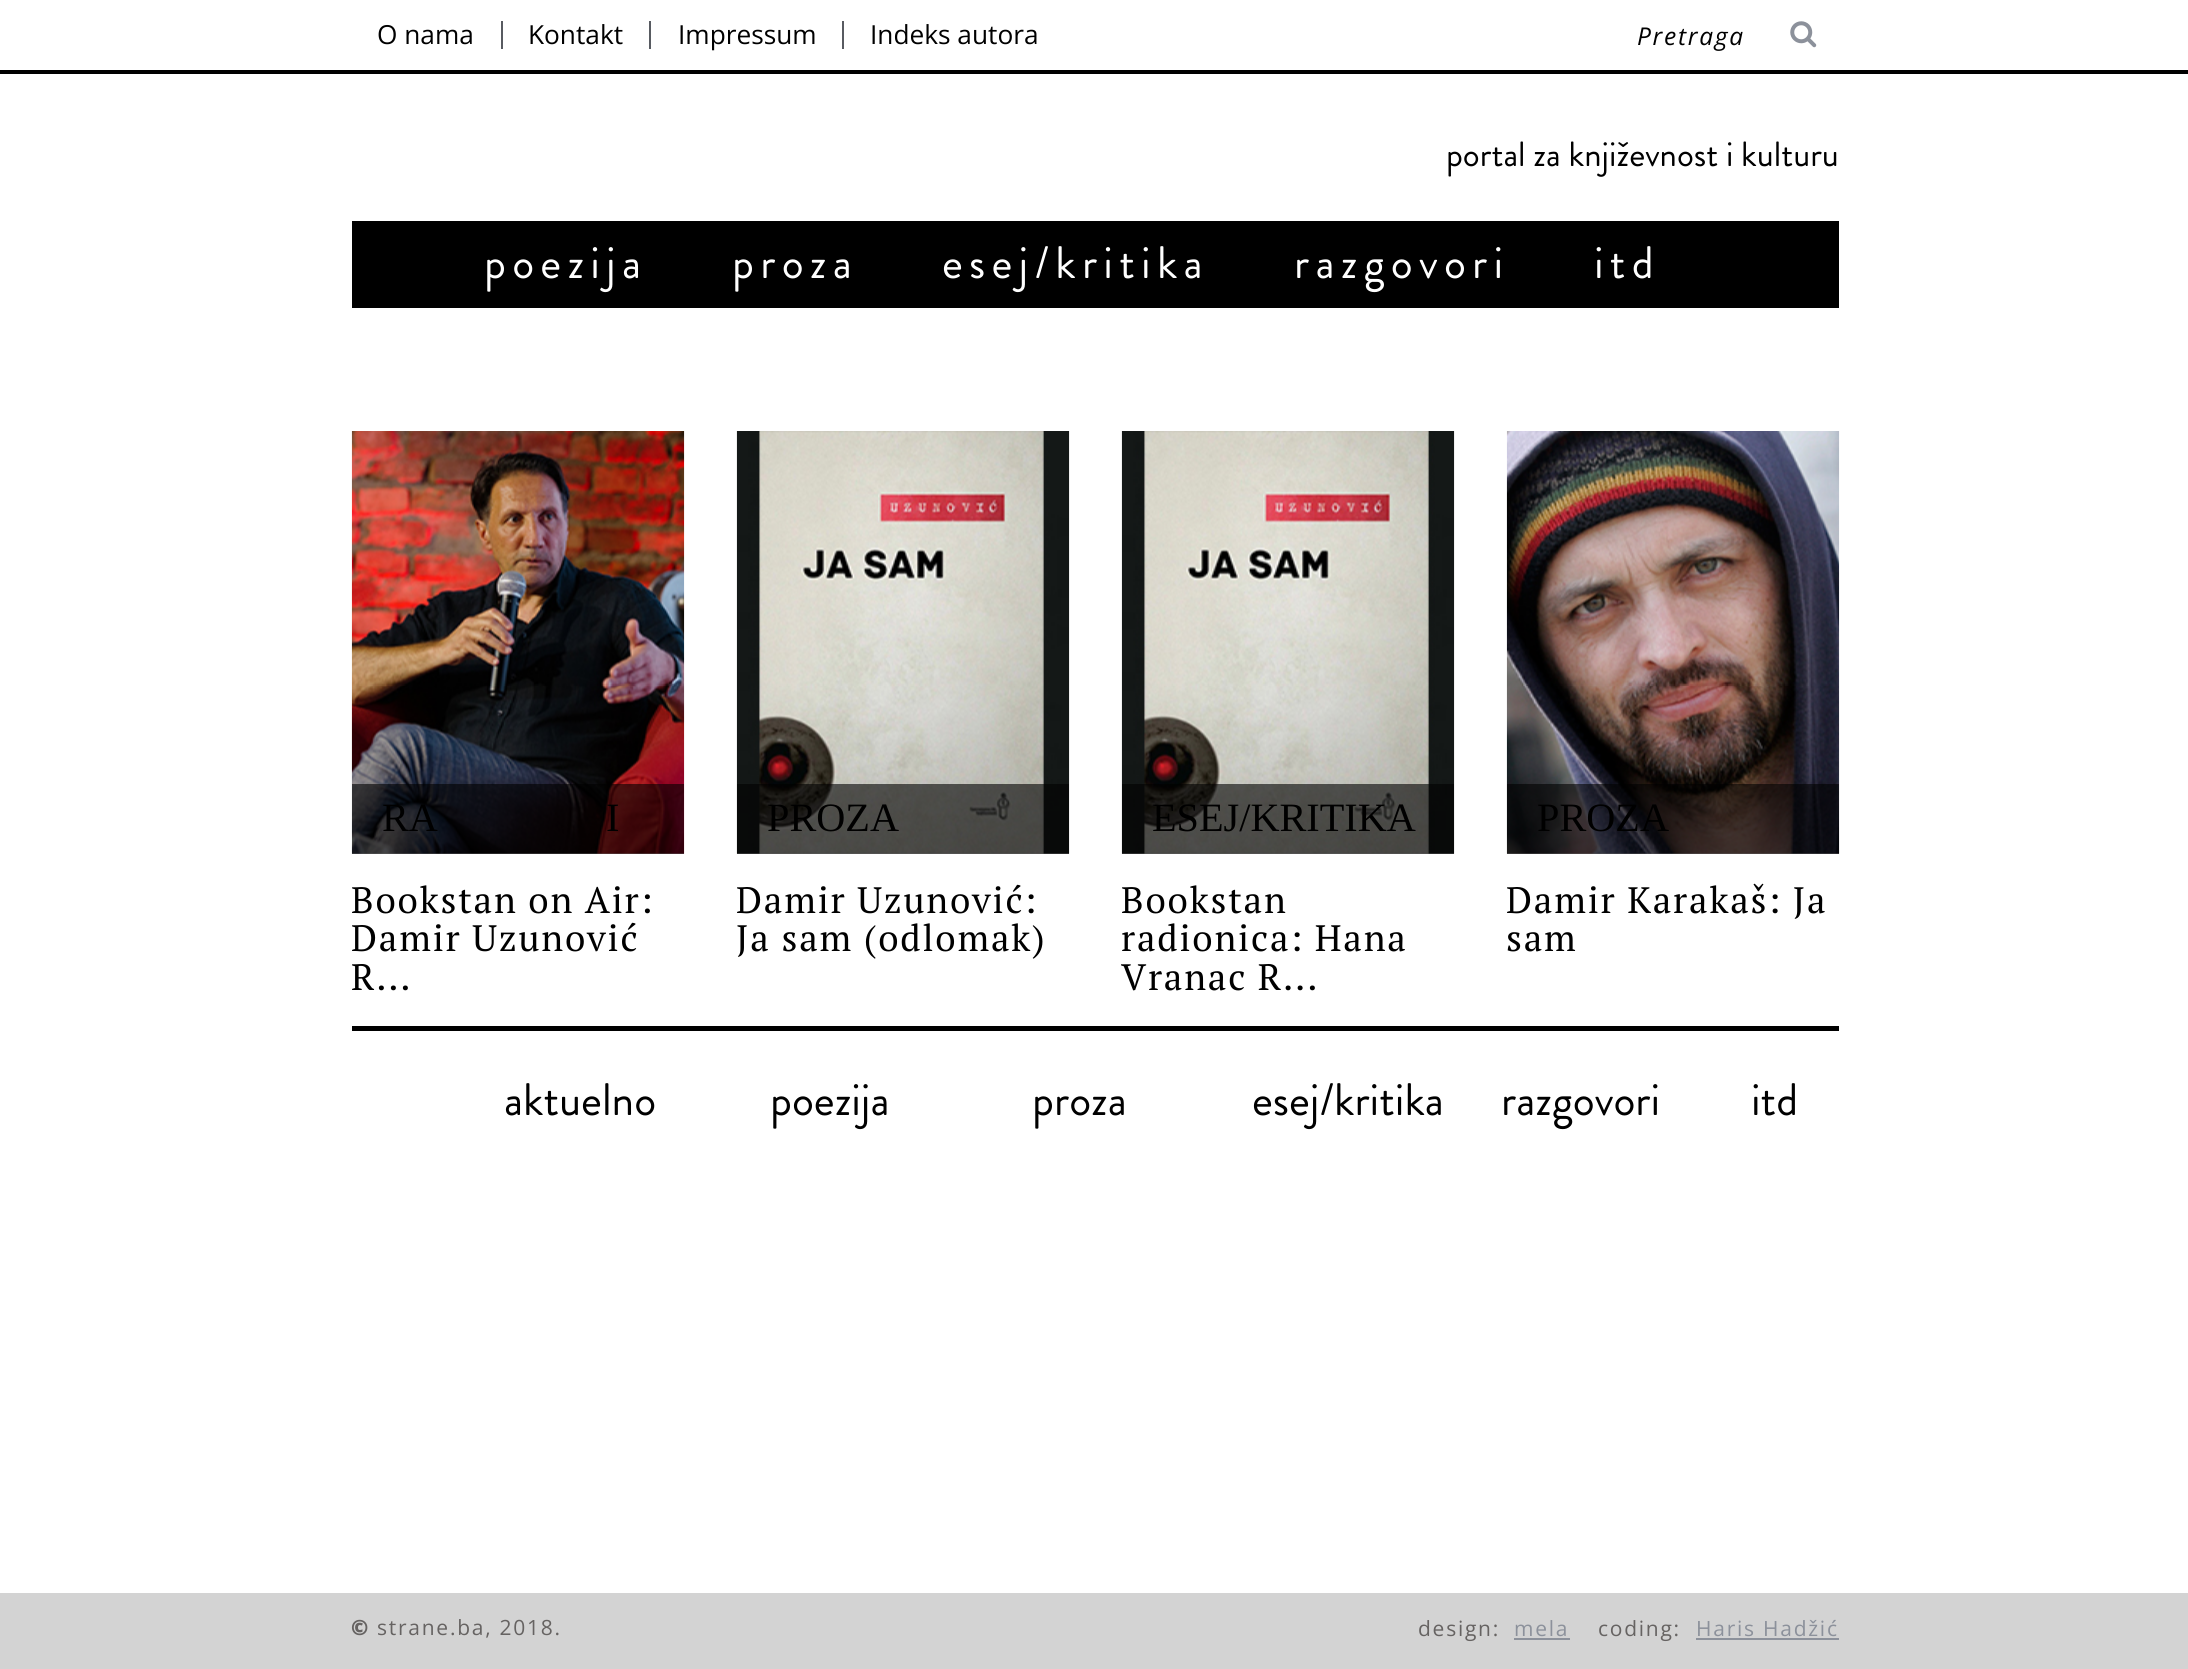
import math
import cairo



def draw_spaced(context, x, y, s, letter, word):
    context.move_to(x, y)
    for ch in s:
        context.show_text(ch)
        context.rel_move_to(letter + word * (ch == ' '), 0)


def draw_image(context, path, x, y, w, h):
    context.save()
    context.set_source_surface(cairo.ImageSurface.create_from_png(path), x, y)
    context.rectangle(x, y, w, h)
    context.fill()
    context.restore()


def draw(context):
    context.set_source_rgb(1, 1, 1)
    context.paint()
    context.set_source_rgb(0, 0, 0)
    context.rectangle(0, 70, 2188, 4)
    context.fill()
    context.set_source_rgb(88 / 255, 91 / 255, 97 / 255)
    context.rectangle(501, 21, 2, 28)
    context.fill()
    context.rectangle(649, 21, 2, 28)
    context.fill()
    context.rectangle(842, 21, 2, 28)
    context.fill()
    draw_image(context, "images/1.png", 1790, 21, 27, 27)
    context.set_source_rgb(0, 0, 0)
    context.rectangle(352, 221, 1487, 87)
    context.fill()
    draw_image(context, "images/2.png", 351, 431, 334, 423)
    context.set_source_rgba(0, 0, 0, 0.6)
    context.rectangle(352, 784, 332, 70)
    context.fill()
    draw_image(context, "images/3.png", 736, 431, 334, 423)
    context.rectangle(737, 784, 332, 70)
    context.fill()
    draw_image(context, "images/4.png", 1121, 431, 334, 423)
    context.rectangle(1122, 784, 332, 70)
    context.fill()
    draw_image(context, "images/5.png", 1506, 431, 334, 423)
    context.rectangle(1507, 784, 332, 70)
    context.fill()
    context.set_source_rgb(0, 0, 0)
    context.rectangle(352, 1026, 1487, 5)
    context.fill()
    context.set_source_rgb(211 / 255, 211 / 255, 211 / 255)
    context.rectangle(0, 1593, 2188, 76)
    context.fill()
    context.set_source_rgb(140 / 255, 145 / 255, 155 / 255)
    context.rectangle(1514, 1638, 56, 2)
    context.fill()
    context.rectangle(1696, 1638, 143, 2)
    context.fill()
    context.select_font_face("Open Sans")
    context.set_font_size(26.25)
    context.set_source_rgb(0, 0, 0)
    context.move_to(377, 44)
    context.show_text("O nama")
    context.move_to(528, 44)
    context.show_text("Kontakt")
    context.move_to(678, 44)
    context.show_text("Impressum")
    context.move_to(870, 44)
    context.show_text("Indeks autora")
    context.select_font_face("Open Sans", cairo.FontSlant.ITALIC)
    context.set_font_size(24.5)
    draw_spaced(context, 1637, 45, "Pretraga", 1.75, 0)
    context.select_font_face("Brandon Grotesque")
    context.set_font_size(35)
    context.move_to(1446, 166)
    context.show_text("portal za književnost i kulturu")
    context.set_font_size(45.5)
    context.set_source_rgb(1, 1, 1)
    draw_spaced(context, 484, 278, "poezija", 6.25, 0)
    draw_spaced(context, 732, 278, "proza", 6.25, 0)
    draw_spaced(context, 942, 278, "esej/kritika", 6.25, 0)
    draw_spaced(context, 1294, 278, "razgovori", 6.25, 0)
    draw_spaced(context, 1594, 278, "itd", 6.25, 0)
    context.select_font_face("Liberation Serif")
    context.set_font_size(40.25)
    context.set_source_rgb(0, 0, 0)
    context.move_to(382, 831)
    context.show_text("RA")
    context.move_to(606, 831)
    context.show_text("I")
    context.select_font_face("PT Serif")
    context.set_font_size(36.75)
    draw_spaced(context, 351, 913, "Bookstan on Air:", 1.8, 0)
    draw_spaced(context, 351, 951, "Damir Uzunović", 1.8, 0)
    draw_spaced(context, 351, 990, "R...", 1.8, 0)
    context.select_font_face("Liberation Serif")
    context.set_font_size(40.25)
    context.move_to(767, 831)
    context.show_text("PROZA")
    context.select_font_face("PT Serif")
    context.set_font_size(36.75)
    draw_spaced(context, 736, 913, "Damir Uzunović:", 1.8, 0)
    draw_spaced(context, 736, 951, "Ja sam (odlomak)", 1.8, 0)
    context.select_font_face("Liberation Serif")
    context.set_font_size(40.25)
    context.move_to(1152, 831)
    context.show_text("ESEJ/KRITIKA")
    context.select_font_face("PT Serif")
    context.set_font_size(36.75)
    draw_spaced(context, 1121, 913, "Bookstan", 1.8, 0)
    draw_spaced(context, 1121, 951, "radionica: Hana", 1.8, 0)
    draw_spaced(context, 1121, 990, "Vranac R...", 1.8, 0)
    context.select_font_face("Liberation Serif")
    context.set_font_size(40.25)
    context.move_to(1537, 831)
    context.show_text("PROZA")
    context.select_font_face("PT Serif")
    context.set_font_size(36.75)
    draw_spaced(context, 1506, 913, "Damir Karakaš: Ja", 1.8, 0)
    draw_spaced(context, 1506, 951, "sam", 1.8, 0)
    context.select_font_face("Brandon Grotesque")
    context.set_font_size(45.5)
    context.move_to(504, 1115)
    context.show_text("aktuelno")
    context.move_to(770, 1115)
    context.show_text("poezija")
    context.move_to(1032, 1115)
    context.show_text("proza")
    context.move_to(1252, 1115)
    context.show_text("esej/kritika")
    context.move_to(1501, 1115)
    context.show_text("razgovori")
    context.move_to(1751, 1115)
    context.show_text("itd")
    context.select_font_face("Noto Sans Black")
    context.set_font_size(21)
    context.set_source_rgb(102 / 255, 99 / 255, 98 / 255)
    draw_spaced(context, 351, 1635, "©", 1.75, 0)
    context.select_font_face("Open Sans")
    draw_spaced(context, 377, 1635, "strane.ba, 2018.", 1.75, 0)
    draw_spaced(context, 1418, 1636, "design:", 1.75, 0)
    context.set_source_rgb(140 / 255, 145 / 255, 155 / 255)
    draw_spaced(context, 1514, 1636, "mela", 1.75, 0)
    context.set_source_rgb(102 / 255, 99 / 255, 98 / 255)
    draw_spaced(context, 1598, 1636, "coding:", 1.75, 0)
    context.set_source_rgb(140 / 255, 145 / 255, 155 / 255)
    draw_spaced(context, 1696, 1636, "Haris Hadžić", 1.75, 0)


surface = cairo.ImageSurface(cairo.Format.RGB24, 2188, 1669)
context = cairo.Context(surface)
options = cairo.FontOptions()
options.set_hint_metrics(cairo.HintMetrics.OFF)
options.set_hint_style(cairo.HintStyle.NONE)
context.set_font_options(options)
context.set_miter_limit(4)
draw(context)
surface.write_to_png("out.png")
